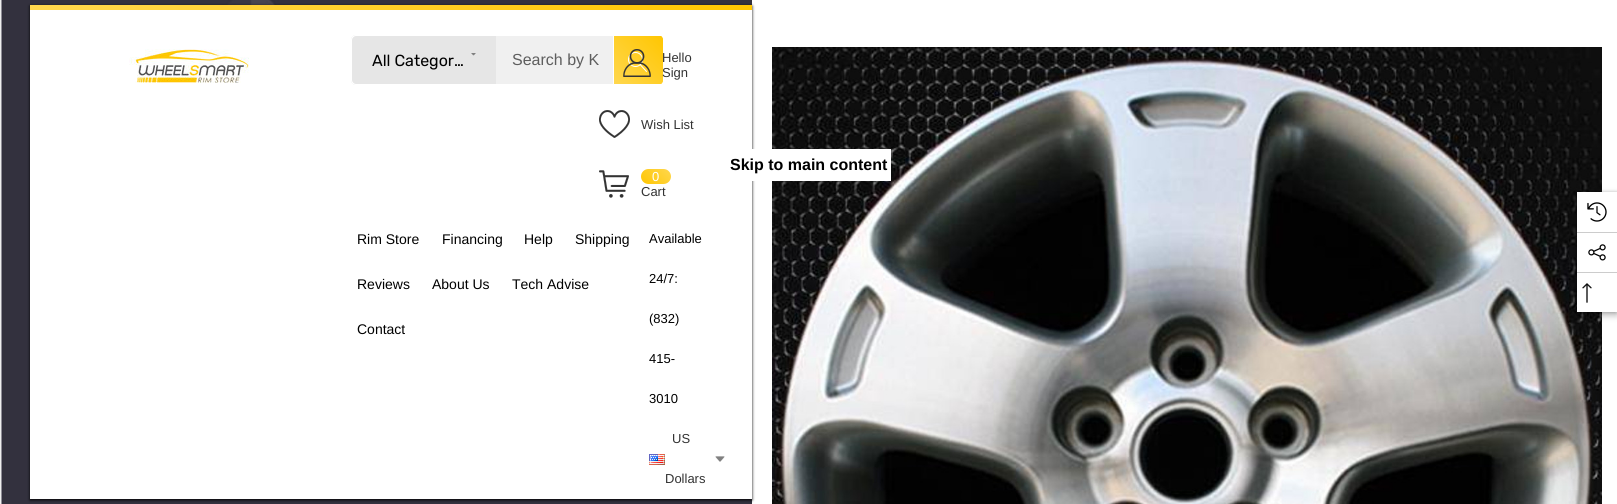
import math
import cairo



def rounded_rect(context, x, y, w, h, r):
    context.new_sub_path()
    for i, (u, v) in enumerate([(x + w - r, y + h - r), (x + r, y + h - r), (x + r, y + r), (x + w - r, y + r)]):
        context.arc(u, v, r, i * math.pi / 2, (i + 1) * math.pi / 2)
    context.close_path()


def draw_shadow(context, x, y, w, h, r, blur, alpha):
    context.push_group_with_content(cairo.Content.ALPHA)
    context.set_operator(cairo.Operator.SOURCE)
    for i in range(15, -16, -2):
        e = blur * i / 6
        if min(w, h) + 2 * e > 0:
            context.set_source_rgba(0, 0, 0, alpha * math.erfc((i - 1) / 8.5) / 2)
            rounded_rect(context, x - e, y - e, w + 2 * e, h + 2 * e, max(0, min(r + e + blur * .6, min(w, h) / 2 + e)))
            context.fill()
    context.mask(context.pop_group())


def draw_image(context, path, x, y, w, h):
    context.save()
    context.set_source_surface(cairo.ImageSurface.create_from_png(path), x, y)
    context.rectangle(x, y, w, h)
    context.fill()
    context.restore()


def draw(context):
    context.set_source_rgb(1, 1, 1)
    context.paint()
    draw_image(context, "images/1.png", 0, 0, 752, 504)
    context.set_source_rgb(0, 0, 0)
    draw_shadow(context, 30, 6, 722, 494, 0, 1.5, 1)
    context.set_source_rgb(1, 1, 1)
    context.rectangle(30, 10, 722, 489)
    context.fill()
    gradient = cairo.LinearGradient(209, 189, 573, -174)
    gradient.add_color_stop_rgba(0, 1, 215 / 255, 78 / 255, 1)
    gradient.add_color_stop_rgba(1, 1, 198 / 255, 1 / 255, 1)
    context.set_source(gradient)
    context.rectangle(30, 5, 722, 5)
    context.fill()
    draw_image(context, "images/2.png", 129, 49, 120, 34)
    context.set_source_rgb(240 / 255, 240 / 255, 240 / 255)
    rounded_rect(context, 351.5, 35.5, 312, 49, 4.5)
    context.fill_preserve()
    context.set_source_rgb(1, 1, 1)
    context.set_line_width(1)
    context.stroke()
    context.set_source_rgb(230 / 255, 230 / 255, 230 / 255)
    context.new_path()
    context.move_to(356, 35)
    context.line_to(496, 35)
    context.line_to(496, 85)
    context.line_to(356, 85)
    context.curve_to(353, 85, 351, 83, 351, 80)
    context.line_to(351, 40)
    context.curve_to(351, 37, 353, 35, 356, 35)
    context.close_path()
    context.fill()
    context.set_source_rgb(1, 1, 1)
    context.set_fill_rule(cairo.FillRule.EVEN_ODD)
    context.new_path()
    context.move_to(356, 35)
    context.line_to(496, 35)
    context.line_to(496, 85)
    context.line_to(356, 85)
    context.curve_to(353, 85, 351, 83, 351, 80)
    context.line_to(351, 40)
    context.curve_to(351, 37, 353, 35, 356, 35)
    context.close_path()
    context.move_to(356, 36)
    context.line_to(496, 36)
    context.line_to(496, 84)
    context.line_to(356, 84)
    context.curve_to(354, 84, 352, 82, 352, 80)
    context.line_to(352, 40)
    context.curve_to(352, 38, 354, 36, 356, 36)
    context.close_path()
    context.fill()
    draw_image(context, "images/3.png", 471, 53, 5, 3)
    context.save()
    context.set_fill_rule(cairo.FillRule.WINDING)
    context.new_path()
    context.move_to(613, 35)
    context.line_to(658, 35)
    context.curve_to(661, 35, 663, 37, 663, 40)
    context.line_to(663, 80)
    context.curve_to(663, 83, 661, 85, 658, 85)
    context.line_to(613, 85)
    context.close_path()
    context.clip()
    gradient = cairo.LinearGradient(614, 84, 663, 36)
    gradient.add_color_stop_rgba(0, 1, 215 / 255, 78 / 255, 1)
    gradient.add_color_stop_rgba(1, 1, 198 / 255, 1 / 255, 1)
    context.set_source(gradient)
    context.rectangle(658, 36, 5, 48)
    context.fill()
    context.restore()
    context.rectangle(660, 35, 1, 1)
    context.fill()
    context.rectangle(660, 84, 1, 1)
    context.fill()
    context.rectangle(613, 35, 1, 50)
    context.fill()
    gradient = cairo.LinearGradient(614, 84, 663, 36)
    gradient.add_color_stop_rgba(0, 1, 215 / 255, 78 / 255, 1)
    gradient.add_color_stop_rgba(1, 1, 198 / 255, 1 / 255, 1)
    context.set_source(gradient)
    context.set_fill_rule(cairo.FillRule.WINDING)
    context.new_path()
    context.move_to(614, 36)
    context.line_to(614, 84)
    context.line_to(658, 84)
    context.curve_to(661, 84, 663, 82, 663, 80)
    context.line_to(663, 40)
    context.curve_to(663, 38, 661, 36, 658, 36)
    context.close_path()
    context.fill()
    draw_image(context, "images/4.png", 628, 52, 19, 20)
    draw_image(context, "images/5.png", 623, 49, 28, 28)
    draw_image(context, "images/6.png", 599, 110, 31, 28)
    draw_image(context, "images/7.png", 599, 170, 30, 28)
    gradient = cairo.LinearGradient(645, 188, 667, 165)
    gradient.add_color_stop_rgba(0, 1, 198 / 255, 1 / 255, 1)
    gradient.add_color_stop_rgba(1, 1, 215 / 255, 78 / 255, 1)
    context.set_source(gradient)
    rounded_rect(context, 641, 169, 30, 15, 7.5)
    context.fill()
    draw_image(context, "images/8.png", 649, 454, 16, 11)
    draw_image(context, "images/9.png", 715, 456, 10, 6)
    draw_image(context, "images/10.png", 772, 47, 830, 457)
    context.set_source_rgb(1, 1, 1)
    context.rectangle(752, 149, 139, 32)
    context.fill()
    context.set_source_rgb(0, 0, 0)
    draw_shadow(context, 1577, 195, 40, 120, 0, 3.5, 0.3)
    draw_shadow(context, 1576, 191, 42, 122, 0, 1, 0.1)
    context.set_source_rgb(1, 1, 1)
    context.rectangle(1577, 192, 40, 120)
    context.fill()
    draw_image(context, "images/11.png", 1587, 202, 20, 20)
    context.set_source_rgb(204 / 255, 204 / 255, 204 / 255)
    context.rectangle(1577, 232, 40, 1)
    context.fill()
    draw_image(context, "images/12.png", 1588, 244, 18, 17)
    context.rectangle(1577, 272, 40, 1)
    context.fill()
    draw_image(context, "images/13.png", 1582, 283, 10, 20)
    context.select_font_face("Rubik")
    context.set_font_size(16)
    context.set_source_rgb(0, 0, 0)
    context.move_to(372, 66)
    context.show_text("All Categor…")
    context.select_font_face("Liberation Sans")
    context.set_source_rgb(94 / 255, 94 / 255, 94 / 255)
    context.move_to(512, 65)
    context.show_text("Search by K")
    context.set_font_size(13)
    context.set_source_rgb(51 / 255, 51 / 255, 51 / 255)
    context.move_to(662, 62)
    context.show_text("Hello")
    context.move_to(662, 77)
    context.show_text("Sign")
    context.move_to(641, 129)
    context.show_text("Wish List")
    context.set_source_rgb(1, 1, 1)
    context.move_to(652, 181)
    context.show_text("0")
    context.set_source_rgb(51 / 255, 51 / 255, 51 / 255)
    context.move_to(641, 196)
    context.show_text("Cart")
    context.set_font_size(14)
    context.set_source_rgb(0, 0, 0)
    context.move_to(357, 244)
    context.show_text("Rim Store")
    context.move_to(442, 244)
    context.show_text("Financing")
    context.move_to(524, 244)
    context.show_text("Help")
    context.move_to(575, 244)
    context.show_text("Shipping")
    context.move_to(357, 289)
    context.show_text("Reviews")
    context.move_to(432, 289)
    context.show_text("About Us")
    context.move_to(512, 289)
    context.show_text("Tech Advise")
    context.move_to(357, 334)
    context.show_text("Contact")
    context.set_font_size(13)
    context.move_to(649, 243)
    context.show_text("Available")
    context.move_to(649, 283)
    context.show_text("24/7:")
    context.move_to(649, 323)
    context.show_text("(832)")
    context.move_to(649, 363)
    context.show_text("415-")
    context.move_to(649, 403)
    context.show_text("3010")
    context.set_source_rgb(51 / 255, 51 / 255, 51 / 255)
    context.move_to(672, 443)
    context.show_text("US")
    context.move_to(665, 483)
    context.show_text("Dollars")
    context.select_font_face("Liberation Sans", cairo.FontSlant.NORMAL, cairo.FontWeight.BOLD)
    context.set_font_size(16)
    context.set_source_rgb(0, 0, 0)
    context.move_to(730, 170)
    context.show_text("Skip to main content")


surface = cairo.ImageSurface(cairo.Format.RGB24, 1617, 504)
context = cairo.Context(surface)
options = cairo.FontOptions()
options.set_hint_metrics(cairo.HintMetrics.OFF)
options.set_hint_style(cairo.HintStyle.NONE)
context.set_font_options(options)
context.set_miter_limit(4)
draw(context)
surface.write_to_png("out.png")
